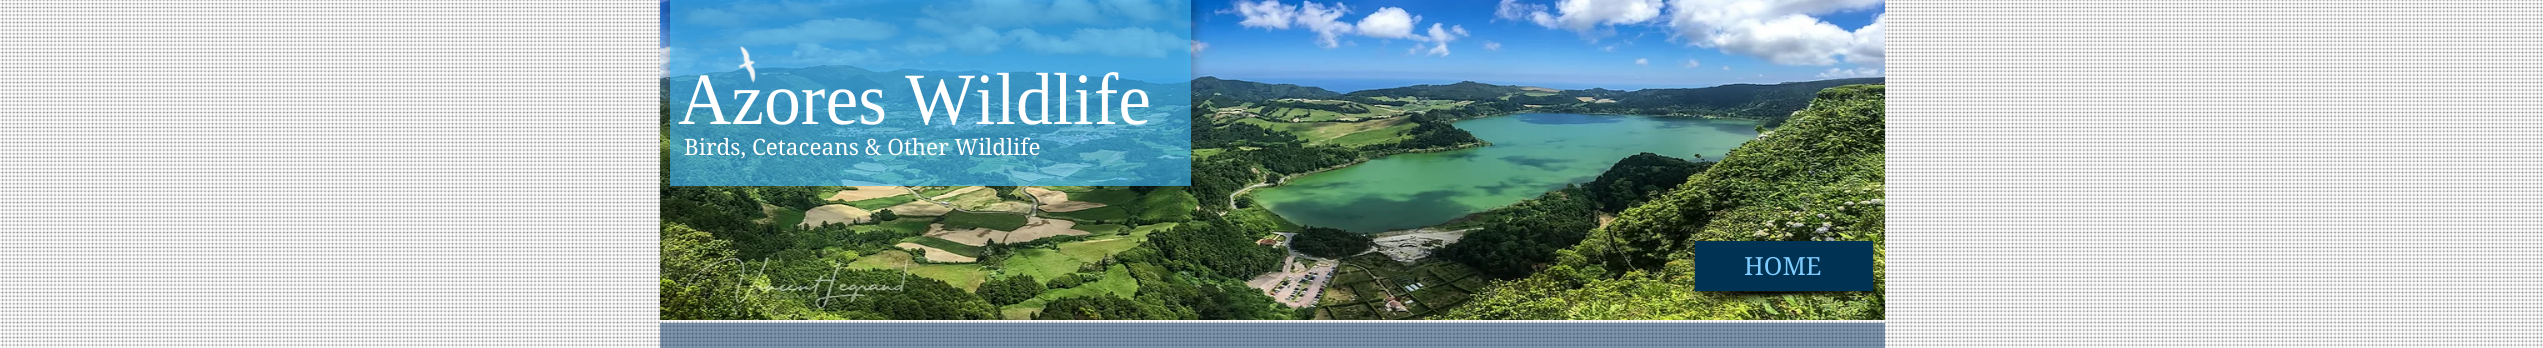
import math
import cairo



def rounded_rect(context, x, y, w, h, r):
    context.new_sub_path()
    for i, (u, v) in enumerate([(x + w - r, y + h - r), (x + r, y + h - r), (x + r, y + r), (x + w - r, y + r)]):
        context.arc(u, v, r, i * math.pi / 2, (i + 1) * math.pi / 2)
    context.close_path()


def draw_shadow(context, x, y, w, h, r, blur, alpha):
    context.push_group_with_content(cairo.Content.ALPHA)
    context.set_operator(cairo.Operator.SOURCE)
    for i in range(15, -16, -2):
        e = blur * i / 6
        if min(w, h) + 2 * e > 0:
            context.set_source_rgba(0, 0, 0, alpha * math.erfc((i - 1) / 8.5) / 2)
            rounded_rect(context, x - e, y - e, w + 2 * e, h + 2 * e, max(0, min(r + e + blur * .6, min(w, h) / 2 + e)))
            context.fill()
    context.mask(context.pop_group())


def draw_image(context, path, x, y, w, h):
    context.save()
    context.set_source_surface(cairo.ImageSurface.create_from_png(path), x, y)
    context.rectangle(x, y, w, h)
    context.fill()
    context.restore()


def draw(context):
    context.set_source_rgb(1, 1, 1)
    context.paint()
    draw_image(context, "images/1.png", 0, 0, 2543, 348)
    draw_image(context, "images/2.png", 660, 0, 1225, 320)
    draw_image(context, "images/3.png", 657, 0, 57, 180)
    draw_image(context, "images/4.png", 713, 0, 435, 187)
    draw_image(context, "images/5.png", 1147, 0, 57, 163)
    context.set_source_rgba(65 / 255, 191 / 255, 1, 0.63)
    context.rectangle(670, 0, 521, 186)
    context.fill()
    draw_image(context, "images/6.png", 738, 46, 18, 37)
    draw_image(context, "images/7.png", 1684, 291, 177, 22)
    context.set_source_rgb(0, 0, 0)
    draw_shadow(context, 1695, 243, 178, 50, 0, 2.5, 0.6)
    context.set_source_rgb(0, 50 / 255, 84 / 255)
    context.rectangle(1695, 241, 178, 50)
    context.fill()
    context.set_source_rgba(5 / 255, 47 / 255, 91 / 255, 0.51)
    context.rectangle(660, 323, 1225, 25)
    context.fill()
    context.select_font_face("Liberation Serif")
    context.set_font_size(73.75)
    context.set_source_rgb(1, 1, 1)
    context.move_to(678, 124)
    context.show_text("Azores Wildlife")
    context.select_font_face("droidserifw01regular")
    context.set_font_size(22.5)
    context.move_to(684, 155)
    context.show_text("Birds, Cetaceans & Other Wildlife")
    context.set_font_size(25)
    context.set_source_rgb(127 / 255, 204 / 255, 1)
    context.move_to(1744, 275)
    context.show_text("HOME")


surface = cairo.ImageSurface(cairo.Format.RGB24, 2543, 348)
context = cairo.Context(surface)
options = cairo.FontOptions()
options.set_hint_metrics(cairo.HintMetrics.OFF)
options.set_hint_style(cairo.HintStyle.NONE)
context.set_font_options(options)
context.set_miter_limit(4)
draw(context)
surface.write_to_png("out.png")
